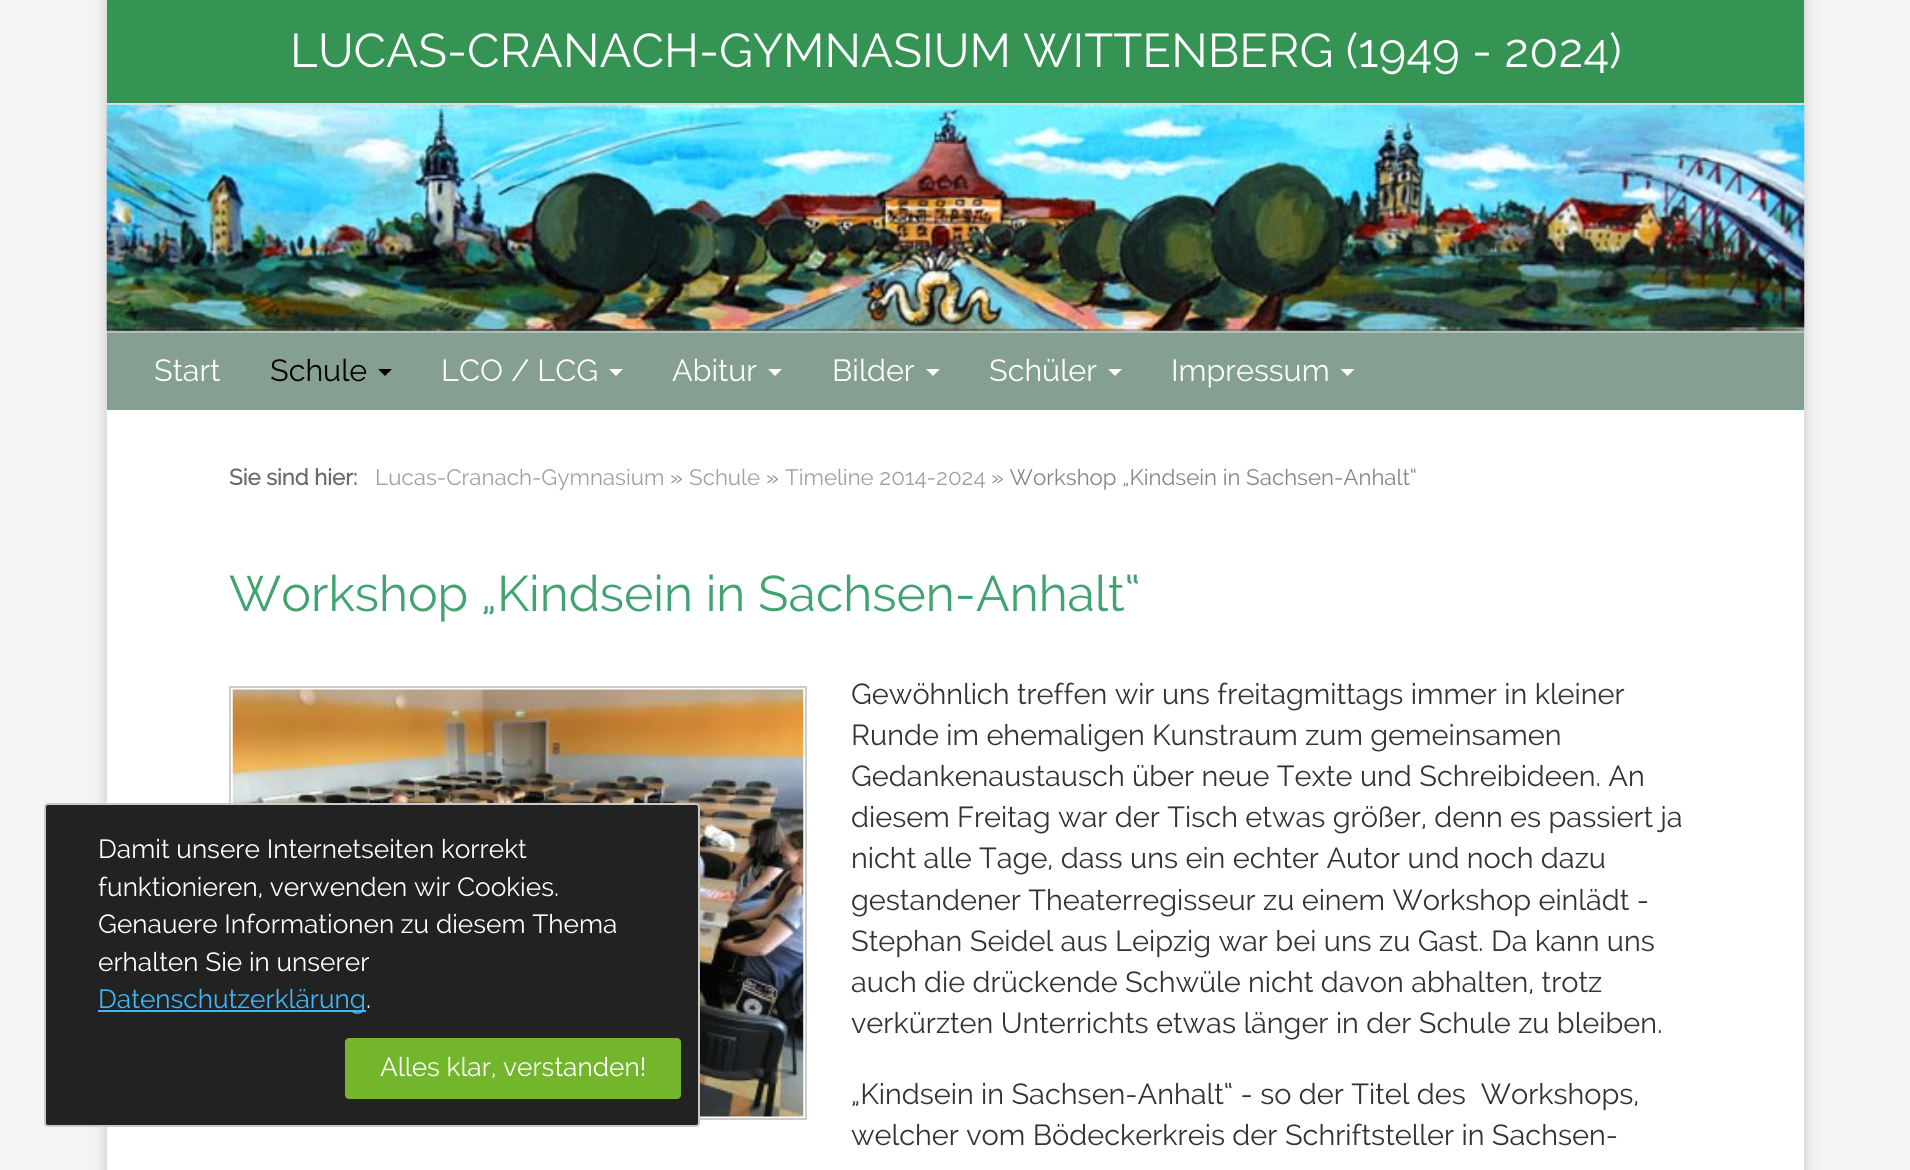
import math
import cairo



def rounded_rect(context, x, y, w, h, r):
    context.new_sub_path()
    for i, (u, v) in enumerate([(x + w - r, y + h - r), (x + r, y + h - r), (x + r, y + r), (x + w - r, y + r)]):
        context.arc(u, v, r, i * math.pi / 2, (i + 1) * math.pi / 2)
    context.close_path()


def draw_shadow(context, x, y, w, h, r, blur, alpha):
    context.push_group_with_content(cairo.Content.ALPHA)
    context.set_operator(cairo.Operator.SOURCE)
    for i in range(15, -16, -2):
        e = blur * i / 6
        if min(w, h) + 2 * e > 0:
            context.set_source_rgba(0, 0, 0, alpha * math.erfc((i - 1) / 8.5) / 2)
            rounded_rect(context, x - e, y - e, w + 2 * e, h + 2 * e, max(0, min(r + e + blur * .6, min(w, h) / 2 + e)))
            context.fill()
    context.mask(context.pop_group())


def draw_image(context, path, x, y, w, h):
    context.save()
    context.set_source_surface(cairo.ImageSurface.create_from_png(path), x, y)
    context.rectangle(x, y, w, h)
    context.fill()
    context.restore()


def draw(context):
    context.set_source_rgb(245 / 255, 244 / 255, 244 / 255)
    context.paint()
    context.set_source_rgb(196 / 255, 196 / 255, 196 / 255)
    draw_shadow(context, 107, 0, 1697, 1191, 0, 7, 1)
    context.set_source_rgb(53 / 255, 147 / 255, 84 / 255)
    context.rectangle(107, 0, 1697, 103)
    context.fill()
    draw_image(context, "images/1.png", 106, 105, 1699, 226)
    context.set_source_rgb(216 / 255, 224 / 255, 220 / 255)
    context.rectangle(107, 103, 1697, 2)
    context.fill()
    context.set_source_rgb(133 / 255, 159 / 255, 146 / 255)
    context.rectangle(107, 333, 1697, 77)
    context.fill()
    context.set_source_rgb(174 / 255, 191 / 255, 183 / 255)
    context.rectangle(107, 331, 1697, 2)
    context.fill()
    context.set_source_rgb(0, 0, 0)
    context.new_path()
    context.move_to(378, 369)
    context.line_to(392, 369)
    context.line_to(385, 376)
    context.close_path()
    context.fill()
    context.set_source_rgb(1, 1, 1)
    context.new_path()
    context.move_to(609, 369)
    context.line_to(623, 369)
    context.line_to(616, 376)
    context.close_path()
    context.fill()
    context.new_path()
    context.move_to(768, 369)
    context.line_to(782, 369)
    context.line_to(775, 376)
    context.close_path()
    context.fill()
    context.new_path()
    context.move_to(926, 369)
    context.line_to(940, 369)
    context.line_to(933, 376)
    context.close_path()
    context.fill()
    context.new_path()
    context.move_to(1108, 369)
    context.line_to(1122, 369)
    context.line_to(1115, 376)
    context.close_path()
    context.fill()
    context.new_path()
    context.move_to(1340.5, 369)
    context.line_to(1354.5, 369)
    context.line_to(1347.5, 376)
    context.close_path()
    context.fill()
    context.rectangle(107, 410, 1697, 760)
    context.fill()
    context.rectangle(230, 687, 576, 432)
    context.set_source_rgb(204 / 255, 204 / 255, 204 / 255)
    context.stroke()
    draw_image(context, "images/2.png", 232, 689, 572, 428)
    context.set_source_rgb(34 / 255, 34 / 255, 34 / 255)
    rounded_rect(context, 45, 804, 654, 322, 3)
    context.fill_preserve()
    context.set_source_rgb(202 / 255, 202 / 255, 202 / 255)
    context.stroke()
    context.set_source_rgb(65 / 255, 182 / 255, 248 / 255)
    context.rectangle(98, 1010, 268, 2)
    context.fill()
    context.set_source_rgb(115 / 255, 181 / 255, 43 / 255)
    rounded_rect(context, 345, 1038, 336, 61, 4)
    context.fill()
    context.select_font_face("Raleway")
    context.set_font_size(47.25)
    context.set_source_rgb(1, 1, 1)
    context.move_to(290, 67)
    context.show_text("LUCAS-CRANACH-GYMNASIUM WITTENBERG (1949 - 2024)")
    context.set_font_size(30.5)
    context.move_to(154, 381)
    context.show_text("Start")
    context.set_source_rgb(0, 0, 0)
    context.move_to(270, 381)
    context.show_text("Schule")
    context.set_source_rgb(1, 1, 1)
    context.move_to(441, 381)
    context.show_text("LCO / LCG")
    context.move_to(672, 381)
    context.show_text("Abitur")
    context.move_to(832, 381)
    context.show_text("Bilder")
    context.move_to(989, 381)
    context.show_text("Schüler")
    context.move_to(1171, 381)
    context.show_text("Impressum")
    context.select_font_face("Raleway", cairo.FontSlant.NORMAL, cairo.FontWeight.BOLD)
    context.set_font_size(22.3)
    context.set_source_rgb(105 / 255, 105 / 255, 105 / 255)
    context.move_to(229, 485)
    context.show_text("Sie sind hier:")
    context.select_font_face("Raleway")
    context.set_source_rgb(160 / 255, 160 / 255, 160 / 255)
    context.move_to(375, 485)
    context.show_text("Lucas-Cranach-Gymnasium")
    context.set_source_rgb(133 / 255, 133 / 255, 133 / 255)
    context.move_to(670, 485)
    context.show_text("»")
    context.set_source_rgb(160 / 255, 160 / 255, 160 / 255)
    context.move_to(689, 485)
    context.show_text("Schule")
    context.set_source_rgb(133 / 255, 133 / 255, 133 / 255)
    context.move_to(766, 485)
    context.show_text("»")
    context.set_source_rgb(160 / 255, 160 / 255, 160 / 255)
    context.move_to(785, 485)
    context.show_text("Timeline 2014-2024")
    context.set_source_rgb(133 / 255, 133 / 255, 133 / 255)
    context.move_to(991, 485)
    context.show_text("» Workshop „Kindsein in Sachsen-Anhalt“")
    context.set_font_size(49.9)
    context.set_source_rgb(65 / 255, 163 / 255, 113 / 255)
    context.move_to(229, 611)
    context.show_text("Workshop „Kindsein in Sachsen-Anhalt“")
    context.set_font_size(28.9)
    context.set_source_rgb(51 / 255, 51 / 255, 51 / 255)
    context.move_to(851, 704)
    context.show_text("Gewöhnlich treffen wir uns freitagmittags immer in kleiner")
    context.move_to(851, 745)
    context.show_text("Runde im ehemaligen Kunstraum zum gemeinsamen")
    context.move_to(851, 786)
    context.show_text("Gedankenaustausch über neue Texte und Schreibideen. An")
    context.move_to(851, 827)
    context.show_text("diesem Freitag war der Tisch etwas größer, denn es passiert ja")
    context.move_to(851, 868)
    context.show_text("nicht alle Tage, dass uns ein echter Autor und noch dazu")
    context.move_to(851, 910)
    context.show_text("gestandener Theaterregisseur zu einem Workshop einlädt -")
    context.move_to(851, 951)
    context.show_text("Stephan Seidel aus Leipzig war bei uns zu Gast. Da kann uns")
    context.move_to(851, 992)
    context.show_text("auch die drückende Schwüle nicht davon abhalten, trotz")
    context.move_to(851, 1033)
    context.show_text("verkürzten Unterrichts etwas länger in der Schule zu bleiben.")
    context.move_to(851, 1104)
    context.show_text("„Kindsein in Sachsen-Anhalt“ - so der Titel des  Workshops,")
    context.move_to(851, 1145)
    context.show_text("welcher vom Bödeckerkreis der Schriftsteller in Sachsen-")
    context.set_font_size(26.25)
    context.set_source_rgb(1, 1, 1)
    context.move_to(98, 858)
    context.show_text("Damit unsere Internetseiten korrekt")
    context.move_to(98, 896)
    context.show_text("funktionieren, verwenden wir Cookies.")
    context.move_to(98, 933)
    context.show_text("Genauere Informationen zu diesem Thema")
    context.move_to(98, 971)
    context.show_text("erhalten Sie in unserer")
    context.set_source_rgb(65 / 255, 182 / 255, 248 / 255)
    context.move_to(98, 1008)
    context.show_text("Datenschutzerklärung")
    context.set_source_rgb(1, 1, 1)
    context.move_to(366, 1008)
    context.show_text(".")
    context.move_to(380, 1076)
    context.show_text("Alles klar, verstanden!")


surface = cairo.ImageSurface(cairo.Format.RGB24, 1910, 1170)
context = cairo.Context(surface)
options = cairo.FontOptions()
options.set_hint_metrics(cairo.HintMetrics.OFF)
options.set_hint_style(cairo.HintStyle.NONE)
context.set_font_options(options)
context.set_miter_limit(4)
draw(context)
surface.write_to_png("out.png")
